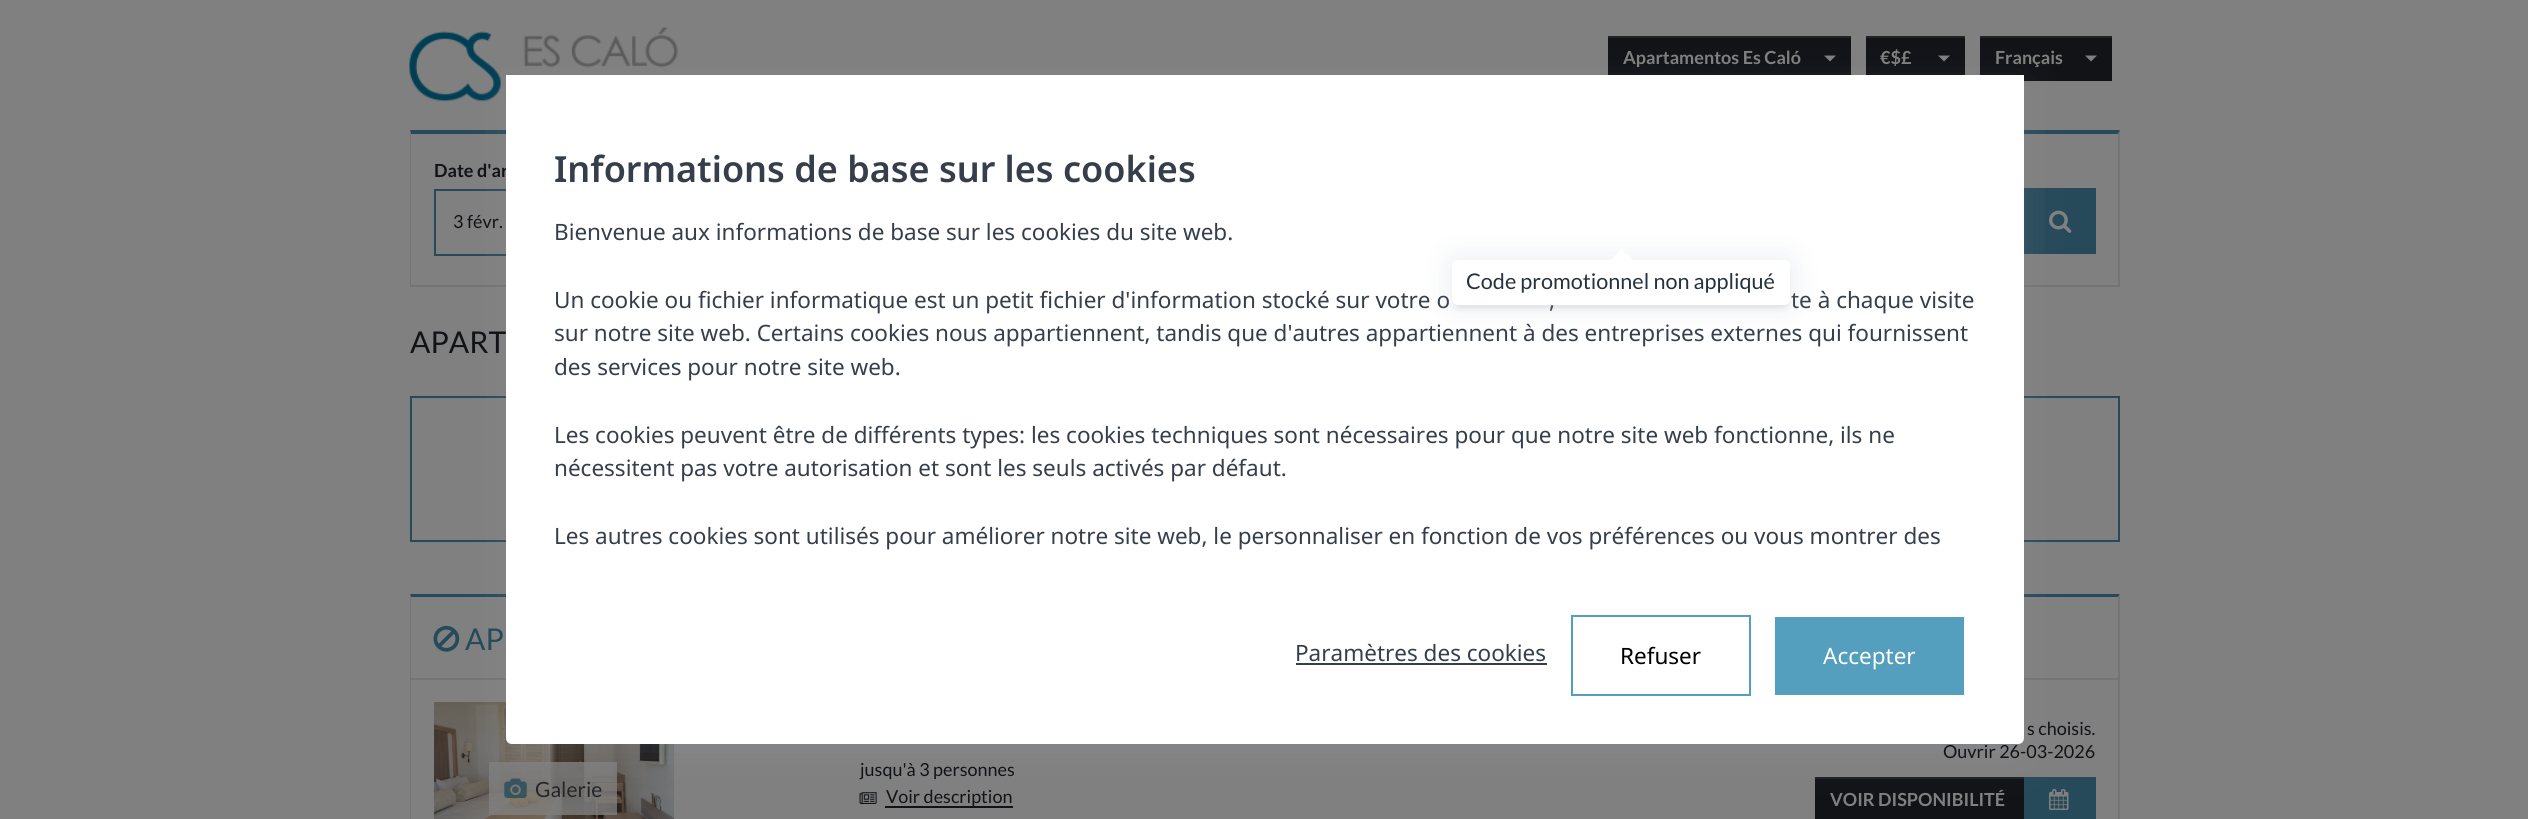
import math
import cairo



def rounded_rect(context, x, y, w, h, r):
    context.new_sub_path()
    for i, (u, v) in enumerate([(x + w - r, y + h - r), (x + r, y + h - r), (x + r, y + r), (x + w - r, y + r)]):
        context.arc(u, v, r, i * math.pi / 2, (i + 1) * math.pi / 2)
    context.close_path()


def draw_shadow(context, x, y, w, h, r, blur, alpha):
    context.push_group_with_content(cairo.Content.ALPHA)
    context.set_operator(cairo.Operator.SOURCE)
    for i in range(15, -16, -2):
        e = blur * i / 6
        if min(w, h) + 2 * e > 0:
            context.set_source_rgba(0, 0, 0, alpha * math.erfc((i - 1) / 8.5) / 2)
            rounded_rect(context, x - e, y - e, w + 2 * e, h + 2 * e, max(0, min(r + e + blur * .6, min(w, h) / 2 + e)))
            context.fill()
    context.mask(context.pop_group())


def draw_image(context, path, x, y, w, h):
    context.save()
    context.set_source_surface(cairo.ImageSurface.create_from_png(path), x, y)
    context.rectangle(x, y, w, h)
    context.fill()
    context.restore()


def draw(context):
    context.set_source_rgb(128 / 255, 128 / 255, 128 / 255)
    context.paint()
    draw_image(context, "images/1.png", 409, 27, 269, 75)
    context.set_source_rgb(17 / 255, 19 / 255, 23 / 255)
    context.rectangle(1608, 38, 243, 37)
    context.fill()
    context.set_source_rgb(33 / 255, 35 / 255, 39 / 255)
    context.rectangle(1608, 36, 243, 2)
    context.fill()
    context.set_source_rgb(128 / 255, 128 / 255, 128 / 255)
    context.new_path()
    context.move_to(1824, 55.5)
    context.line_to(1836, 55.5)
    context.line_to(1830, 61.5)
    context.close_path()
    context.fill()
    context.set_source_rgb(17 / 255, 19 / 255, 23 / 255)
    context.rectangle(1866, 38, 99, 37)
    context.fill()
    context.set_source_rgb(33 / 255, 35 / 255, 39 / 255)
    context.rectangle(1866, 36, 99, 2)
    context.fill()
    context.set_source_rgb(128 / 255, 128 / 255, 128 / 255)
    context.new_path()
    context.move_to(1938, 55.5)
    context.line_to(1950, 55.5)
    context.line_to(1944, 61.5)
    context.close_path()
    context.fill()
    context.set_source_rgb(17 / 255, 19 / 255, 23 / 255)
    context.rectangle(1980, 38, 132, 43)
    context.fill()
    context.set_source_rgb(33 / 255, 35 / 255, 39 / 255)
    context.rectangle(1980, 36, 132, 2)
    context.fill()
    context.set_source_rgb(128 / 255, 128 / 255, 128 / 255)
    context.new_path()
    context.move_to(2085, 55.5)
    context.line_to(2097, 55.5)
    context.line_to(2091, 61.5)
    context.close_path()
    context.fill()
    context.set_source_rgb(39 / 255, 74 / 255, 90 / 255)
    context.new_path()
    context.move_to(410, 130)
    context.line_to(2120, 130)
    context.line_to(2118, 134)
    context.line_to(411, 134)
    context.close_path()
    context.fill()
    context.set_source_rgb(115 / 255, 116 / 255, 116 / 255)
    context.new_path()
    context.move_to(2120, 130)
    context.line_to(2120, 286)
    context.line_to(2118, 285)
    context.line_to(2118, 134)
    context.close_path()
    context.fill()
    context.rectangle(410, 285, 1710, 2)
    context.fill()
    context.new_path()
    context.move_to(410, 286)
    context.line_to(410, 130)
    context.line_to(411, 134)
    context.line_to(411, 285)
    context.close_path()
    context.fill()
    context.set_source_rgb(39 / 255, 74 / 255, 90 / 255)
    context.rectangle(434, 189, 72, 2)
    context.fill()
    context.rectangle(434, 254, 72, 2)
    context.fill()
    context.rectangle(434, 189, 2, 66)
    context.fill()
    context.rectangle(2024, 188, 72, 66)
    context.fill()
    draw_image(context, "images/2.png", 2049, 210, 23, 23)
    context.rectangle(411, 397, 1708, 144)
    context.stroke()
    context.new_path()
    context.move_to(410, 594)
    context.line_to(2120, 594)
    context.line_to(2118, 597)
    context.line_to(411, 597)
    context.close_path()
    context.fill()
    context.set_source_rgb(115 / 255, 116 / 255, 116 / 255)
    context.new_path()
    context.move_to(2120, 594)
    context.line_to(2120, 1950)
    context.line_to(2118, 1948)
    context.line_to(2118, 597)
    context.close_path()
    context.fill()
    context.new_path()
    context.move_to(410, 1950)
    context.line_to(410, 594)
    context.line_to(411, 597)
    context.line_to(411, 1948)
    context.close_path()
    context.fill()
    context.rectangle(411, 678, 1707, 2)
    context.fill()
    draw_image(context, "images/3.png", 433, 625, 27, 27)
    draw_image(context, "images/4.png", 434, 702, 240, 117)
    context.set_source_rgba(128 / 255, 128 / 255, 128 / 255, 0.8)
    context.rectangle(489, 762, 128, 53)
    context.fill()
    draw_image(context, "images/5.png", 504, 778, 23, 20)
    draw_image(context, "images/6.png", 859, 792, 18, 12)
    context.set_source_rgb(17 / 255, 19 / 255, 23 / 255)
    context.rectangle(885, 806, 128, 2)
    context.fill()
    context.rectangle(1815, 779, 209, 40)
    context.fill()
    context.set_source_rgb(33 / 255, 35 / 255, 39 / 255)
    context.rectangle(1815, 777, 209, 2)
    context.fill()
    context.set_source_rgb(39 / 255, 74 / 255, 90 / 255)
    context.rectangle(2024, 777, 72, 42)
    context.fill()
    draw_image(context, "images/7.png", 2049, 789, 20, 21)
    context.set_source_rgb(149 / 255, 157 / 255, 165 / 255)
    draw_shadow(context, 506, 87, 1518, 669, 6, 18, 0.2)
    context.set_source_rgb(1, 1, 1)
    context.new_path()
    context.move_to(506, 567)
    context.line_to(2024, 567)
    context.line_to(2024, 738)
    context.curve_to(2024, 741.5, 2021.5, 744, 2018, 744)
    context.line_to(512, 744)
    context.curve_to(508.5, 744, 506, 741.5, 506, 738)
    context.close_path()
    context.fill()
    context.set_source_rgb(54 / 255, 62 / 255, 76 / 255)
    context.rectangle(1296, 663, 251, 2)
    context.fill()
    context.rectangle(1572, 616, 178, 79)
    context.set_source_rgb(84 / 255, 158 / 255, 190 / 255)
    context.stroke()
    context.rectangle(1775, 617, 189, 78)
    context.fill()
    context.select_font_face("Lato", cairo.FontSlant.NORMAL, cairo.FontWeight.BOLD)
    context.set_font_size(18)
    context.set_source_rgb(128 / 255, 128 / 255, 128 / 255)
    context.move_to(1623, 64)
    context.show_text("Apartamentos Es Caló")
    context.move_to(1880, 64)
    context.show_text("€$£")
    context.move_to(1995, 64)
    context.show_text("Français")
    context.set_source_rgb(17 / 255, 19 / 255, 23 / 255)
    context.move_to(434, 177)
    context.show_text("Date d'ar")
    context.select_font_face("Lato")
    context.move_to(453, 228)
    context.show_text("3 févr.")
    context.set_font_size(30)
    context.move_to(410, 353)
    context.show_text("APART")
    context.set_source_rgb(39 / 255, 74 / 255, 90 / 255)
    context.move_to(465, 650)
    context.show_text("AP")
    context.set_font_size(21)
    context.set_source_rgb(37 / 255, 38 / 255, 41 / 255)
    context.move_to(535, 797)
    context.show_text("Galerie")
    context.set_font_size(18)
    context.set_source_rgb(17 / 255, 19 / 255, 23 / 255)
    context.move_to(860, 776)
    context.show_text("jusqu'à 3 personnes")
    context.move_to(886, 803)
    context.show_text("Voir description")
    context.move_to(2027, 735)
    context.show_text("s choisis.")
    context.move_to(1943, 758)
    context.show_text("Ouvrir 26-03-2026")
    context.select_font_face("Lato", cairo.FontSlant.NORMAL, cairo.FontWeight.BOLD)
    context.set_source_rgb(128 / 255, 128 / 255, 128 / 255)
    context.move_to(1830, 806)
    context.show_text("VOIR DISPONIBILITÉ")
    context.set_source_rgb(1, 1, 1)
    context.rectangle(506, 75, 1518, 492)
    context.fill()
    context.select_font_face("Noto Sans SemiBold")
    context.set_font_size(36)
    context.set_source_rgb(54 / 255, 62 / 255, 76 / 255)
    context.move_to(554, 182)
    context.show_text("Informations de base sur les cookies")
    context.select_font_face("Noto Sans")
    context.set_font_size(22.5)
    context.move_to(554, 240)
    context.show_text("Bienvenue aux informations de base sur les cookies du site web.")
    context.move_to(554, 308)
    context.show_text("Un cookie ou fichier informatique est un petit fichier d'information stocké sur votre o")
    context.move_to(1549, 308)
    context.show_text(",")
    context.move_to(1791, 308)
    context.show_text("te à chaque visite")
    context.move_to(554, 341)
    context.show_text("sur notre site web. Certains cookies nous appartiennent, tandis que d'autres appartiennent à des entreprises externes qui fournissent")
    context.move_to(554, 375)
    context.show_text("des services pour notre site web.")
    context.move_to(554, 443)
    context.show_text("Les cookies peuvent être de différents types: les cookies techniques sont nécessaires pour que notre site web fonctionne, ils ne")
    context.move_to(554, 476)
    context.show_text("nécessitent pas votre autorisation et sont les seuls activés par défaut.")
    context.move_to(554, 544)
    context.show_text("Les autres cookies sont utilisés pour améliorer notre site web, le personnaliser en fonction de vos préférences ou vous montrer des")
    context.move_to(1295, 661)
    context.show_text("Paramètres des cookies")
    context.set_source_rgb(0, 0, 0)
    context.move_to(1620, 664)
    context.show_text("Refuser")
    context.set_source_rgb(1, 1, 1)
    context.move_to(1823, 664)
    context.show_text("Accepter")
    context.set_source_rgb(91 / 255, 94 / 255, 105 / 255)
    draw_shadow(context, 1455, 269, 332, 39, 3, 3, 0.15)
    context.set_source_rgb(154 / 255, 161 / 255, 177 / 255)
    draw_shadow(context, 1446, 254, 350, 57, 12, 15, 0.15)
    context.set_source_rgb(1, 1, 1)
    rounded_rect(context, 1452, 260, 338, 45, 6)
    context.fill()
    context.new_path()
    context.move_to(1633.5, 261)
    context.line_to(1609.5, 261)
    context.line_to(1621.5, 249)
    context.close_path()
    context.fill()
    context.select_font_face("Lato")
    context.set_font_size(21.6)
    context.set_source_rgb(38 / 255, 50 / 255, 61 / 255)
    context.move_to(1466, 289)
    context.show_text("Code promotionnel non appliqué")


surface = cairo.ImageSurface(cairo.Format.RGB24, 2528, 819)
context = cairo.Context(surface)
options = cairo.FontOptions()
options.set_hint_metrics(cairo.HintMetrics.OFF)
options.set_hint_style(cairo.HintStyle.NONE)
context.set_font_options(options)
context.set_miter_limit(4)
draw(context)
surface.write_to_png("out.png")
